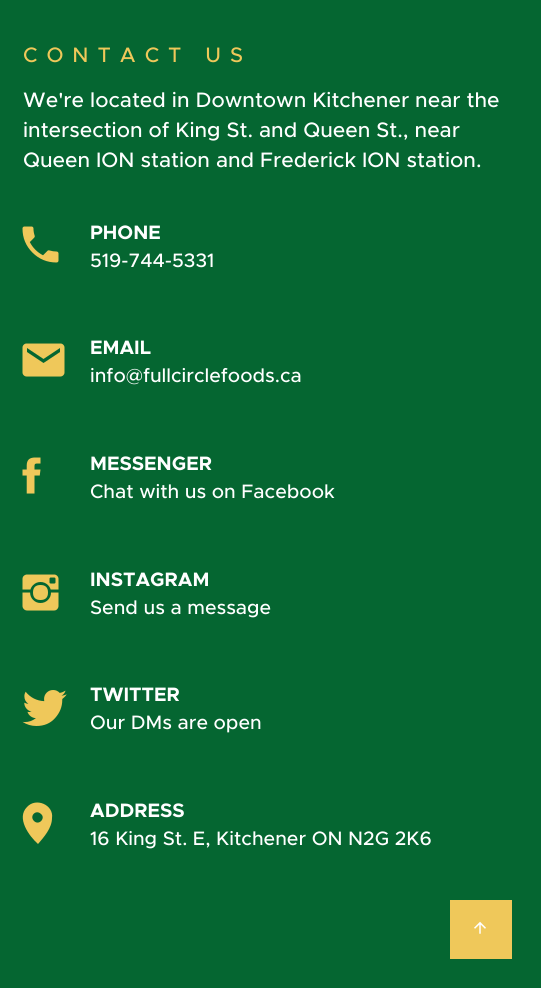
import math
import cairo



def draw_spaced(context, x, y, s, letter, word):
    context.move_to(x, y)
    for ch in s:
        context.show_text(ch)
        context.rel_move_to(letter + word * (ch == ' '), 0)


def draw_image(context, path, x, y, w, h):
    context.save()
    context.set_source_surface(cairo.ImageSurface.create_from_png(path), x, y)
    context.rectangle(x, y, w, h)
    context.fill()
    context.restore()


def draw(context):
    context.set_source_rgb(5 / 255, 102 / 255, 49 / 255)
    context.paint()
    draw_image(context, "images/1.png", 22, 226, 37, 37)
    draw_image(context, "images/2.png", 22, 343, 43, 34)
    draw_image(context, "images/3.png", 22, 457, 19, 37)
    draw_image(context, "images/4.png", 22, 574, 37, 37)
    draw_image(context, "images/5.png", 22, 690, 45, 36)
    context.set_source_rgb(239 / 255, 200 / 255, 90 / 255)
    context.new_path()
    context.move_to(27, 807)
    context.curve_to(36, 797, 54, 805, 52, 818)
    context.curve_to(52, 828, 44, 837, 38, 844)
    context.curve_to(29, 836, 16, 818, 27, 807)
    context.close_path()
    context.move_to(34, 821)
    context.curve_to(39, 826, 46, 818, 41, 814)
    context.curve_to(36, 809, 29, 816, 34, 821)
    context.close_path()
    context.fill()
    context.rectangle(450, 900, 62, 59)
    context.fill()
    draw_image(context, "images/6.png", 474, 921, 12, 13)
    context.select_font_face("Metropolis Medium")
    context.set_font_size(21)
    draw_spaced(context, 23, 62, "CONTACT US", 9, 0)
    context.set_source_rgb(1, 1, 1)
    context.move_to(23, 107)
    context.show_text("We're located in Downtown Kitchener near the")
    context.move_to(23, 137)
    context.show_text("intersection of King St. and Queen St., near")
    context.move_to(23, 167)
    context.show_text("Queen ION station and Frederick ION station.")
    context.select_font_face("Metropolis", cairo.FontSlant.NORMAL, cairo.FontWeight.BOLD)
    context.set_font_size(19.5)
    context.move_to(90, 239)
    context.show_text("PHONE")
    context.select_font_face("Metropolis Medium")
    context.move_to(90, 267)
    context.show_text("519-744-5331")
    context.select_font_face("Metropolis", cairo.FontSlant.NORMAL, cairo.FontWeight.BOLD)
    context.move_to(90, 354)
    context.show_text("EMAIL")
    context.select_font_face("Metropolis Medium")
    context.move_to(90, 382)
    context.show_text("info@fullcirclefoods.ca")
    context.select_font_face("Metropolis", cairo.FontSlant.NORMAL, cairo.FontWeight.BOLD)
    context.move_to(90, 470)
    context.show_text("MESSENGER")
    context.select_font_face("Metropolis Medium")
    context.move_to(90, 498)
    context.show_text("Chat with us on Facebook")
    context.select_font_face("Metropolis", cairo.FontSlant.NORMAL, cairo.FontWeight.BOLD)
    context.move_to(90, 586)
    context.show_text("INSTAGRAM")
    context.select_font_face("Metropolis Medium")
    context.move_to(90, 614)
    context.show_text("Send us a message")
    context.select_font_face("Metropolis", cairo.FontSlant.NORMAL, cairo.FontWeight.BOLD)
    context.move_to(90, 701)
    context.show_text("TWITTER")
    context.select_font_face("Metropolis Medium")
    context.move_to(90, 729)
    context.show_text("Our DMs are open")
    context.select_font_face("Metropolis", cairo.FontSlant.NORMAL, cairo.FontWeight.BOLD)
    context.move_to(90, 817)
    context.show_text("ADDRESS")
    context.select_font_face("Metropolis Medium")
    context.move_to(90, 845)
    context.show_text("16 King St. E, Kitchener ON N2G 2K6")


surface = cairo.ImageSurface(cairo.Format.RGB24, 541, 988)
context = cairo.Context(surface)
options = cairo.FontOptions()
options.set_hint_metrics(cairo.HintMetrics.OFF)
options.set_hint_style(cairo.HintStyle.NONE)
context.set_font_options(options)
context.set_miter_limit(4)
draw(context)
surface.write_to_png("out.png")
